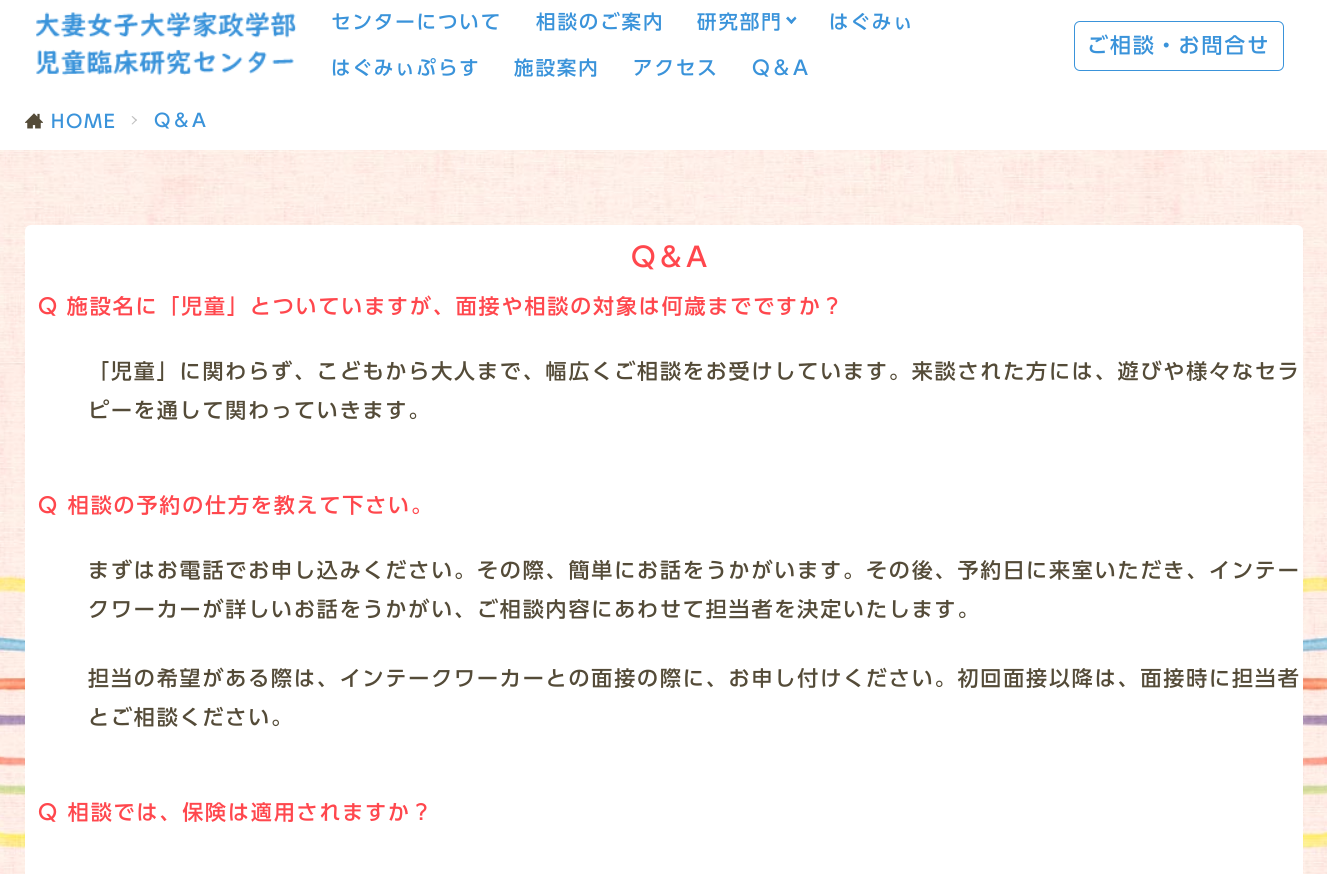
import math
import cairo



def draw_spaced(context, x, y, s, letter, word):
    context.move_to(x, y)
    for ch in s:
        context.show_text(ch)
        context.rel_move_to(letter + word * (ch == ' '), 0)


def rounded_rect(context, x, y, w, h, r):
    context.new_sub_path()
    for i, (u, v) in enumerate([(x + w - r, y + h - r), (x + r, y + h - r), (x + r, y + r), (x + w - r, y + r)]):
        context.arc(u, v, r, i * math.pi / 2, (i + 1) * math.pi / 2)
    context.close_path()


def draw_image(context, path, x, y, w, h):
    context.save()
    context.set_source_surface(cairo.ImageSurface.create_from_png(path), x, y)
    context.rectangle(x, y, w, h)
    context.fill()
    context.restore()


def draw(context):
    context.set_source_rgb(1, 1, 1)
    context.paint()
    draw_image(context, "images/1.png", 0, 150, 1327, 724)
    draw_image(context, "images/2.png", 36, 11, 261, 65)
    context.set_source_rgb(58 / 255, 147 / 255, 218 / 255)
    context.new_path()
    context.move_to(795, 16.5)
    context.line_to(796.5, 18.5)
    context.line_to(791.5, 24)
    context.line_to(789.5, 22)
    context.close_path()
    context.fill()
    context.new_path()
    context.move_to(788, 16.5)
    context.line_to(793, 22)
    context.line_to(791.5, 24)
    context.line_to(786, 18.5)
    context.close_path()
    context.fill()
    rounded_rect(context, 1074.5, 21.5, 209, 49, 5.5)
    context.set_line_width(1)
    context.stroke()
    draw_image(context, "images/3.png", 25, 113, 18, 16)
    context.set_source_rgb(191 / 255, 191 / 255, 191 / 255)
    context.new_path()
    context.move_to(132.5, 116)
    context.line_to(137, 120)
    context.line_to(136, 121)
    context.line_to(131.5, 116.5)
    context.close_path()
    context.fill()
    context.new_path()
    context.move_to(136, 119.5)
    context.line_to(137, 120)
    context.line_to(132.5, 124.5)
    context.line_to(131.5, 124)
    context.close_path()
    context.fill()
    context.set_source_rgb(1, 1, 1)
    rounded_rect(context, 25, 225, 1278, 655, 6)
    context.fill()
    context.select_font_face("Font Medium")
    context.set_font_size(19.5)
    context.set_source_rgb(58 / 255, 147 / 255, 218 / 255)
    draw_spaced(context, 331, 29, "センターについて", 1.88, 0)
    draw_spaced(context, 536, 29, "相談のご案内", 1.88, 0)
    draw_spaced(context, 697, 29, "研究部門", 1.88, 0)
    draw_spaced(context, 829, 29, "はぐみぃ", 1.88, 0)
    draw_spaced(context, 331, 75, "はぐみぃぷらす", 1.88, 0)
    draw_spaced(context, 514, 75, "施設案内", 1.88, 0)
    draw_spaced(context, 633, 75, "アクセス", 1.88, 0)
    draw_spaced(context, 752, 75, "Q＆A", 1.88, 0)
    context.set_font_size(21)
    draw_spaced(context, 1087, 53, "ご相談・お問合せ", 1.88, 0)
    context.set_font_size(18)
    draw_spaced(context, 51, 128, "HOME", 1.88, 0)
    draw_spaced(context, 154, 127, "Q＆A", 1.88, 0)
    context.set_font_size(27)
    context.set_source_rgb(1, 71 / 255, 77 / 255)
    draw_spaced(context, 631, 267, "Q＆A", 1.88, 0)
    context.set_font_size(21)
    draw_spaced(context, 38, 314, "Q 施設名に「児童」とついていますが、面接や相談の対象は何歳までですか？", 1.88, -1)
    context.set_source_rgb(84 / 255, 75 / 255, 56 / 255)
    draw_spaced(context, 88, 379, "「児童」に関わらず、こどもから大人まで、幅広くご相談をお受けしています。来談された方には、遊びや様々なセラ", 1.88, 0)
    draw_spaced(context, 88, 418, "ピーを通して関わっていきます。", 1.88, 0)
    context.set_source_rgb(1, 71 / 255, 77 / 255)
    draw_spaced(context, 38, 513, "Q 相談の予約の仕方を教えて下さい。", 1.88, 0)
    context.set_source_rgb(84 / 255, 75 / 255, 56 / 255)
    draw_spaced(context, 88, 578, "まずはお電話でお申し込みください。その際、簡単にお話をうかがいます。その後、予約日に来室いただき、インテー", 1.88, 0)
    draw_spaced(context, 88, 617, "クワーカーが詳しいお話をうかがい、ご相談内容にあわせて担当者を決定いたします。", 1.88, 0)
    draw_spaced(context, 88, 686, "担当の希望がある際は、インテークワーカーとの面接の際に、お申し付けください。初回面接以降は、面接時に担当者", 1.88, 0)
    draw_spaced(context, 88, 725, "とご相談ください。", 1.88, 0)
    context.set_source_rgb(1, 71 / 255, 77 / 255)
    draw_spaced(context, 38, 820, "Q 相談では、保険は適用されますか？", 1.88, 0)


surface = cairo.ImageSurface(cairo.Format.RGB24, 1327, 874)
context = cairo.Context(surface)
options = cairo.FontOptions()
options.set_hint_metrics(cairo.HintMetrics.OFF)
options.set_hint_style(cairo.HintStyle.NONE)
context.set_font_options(options)
context.set_miter_limit(4)
draw(context)
surface.write_to_png("out.png")
